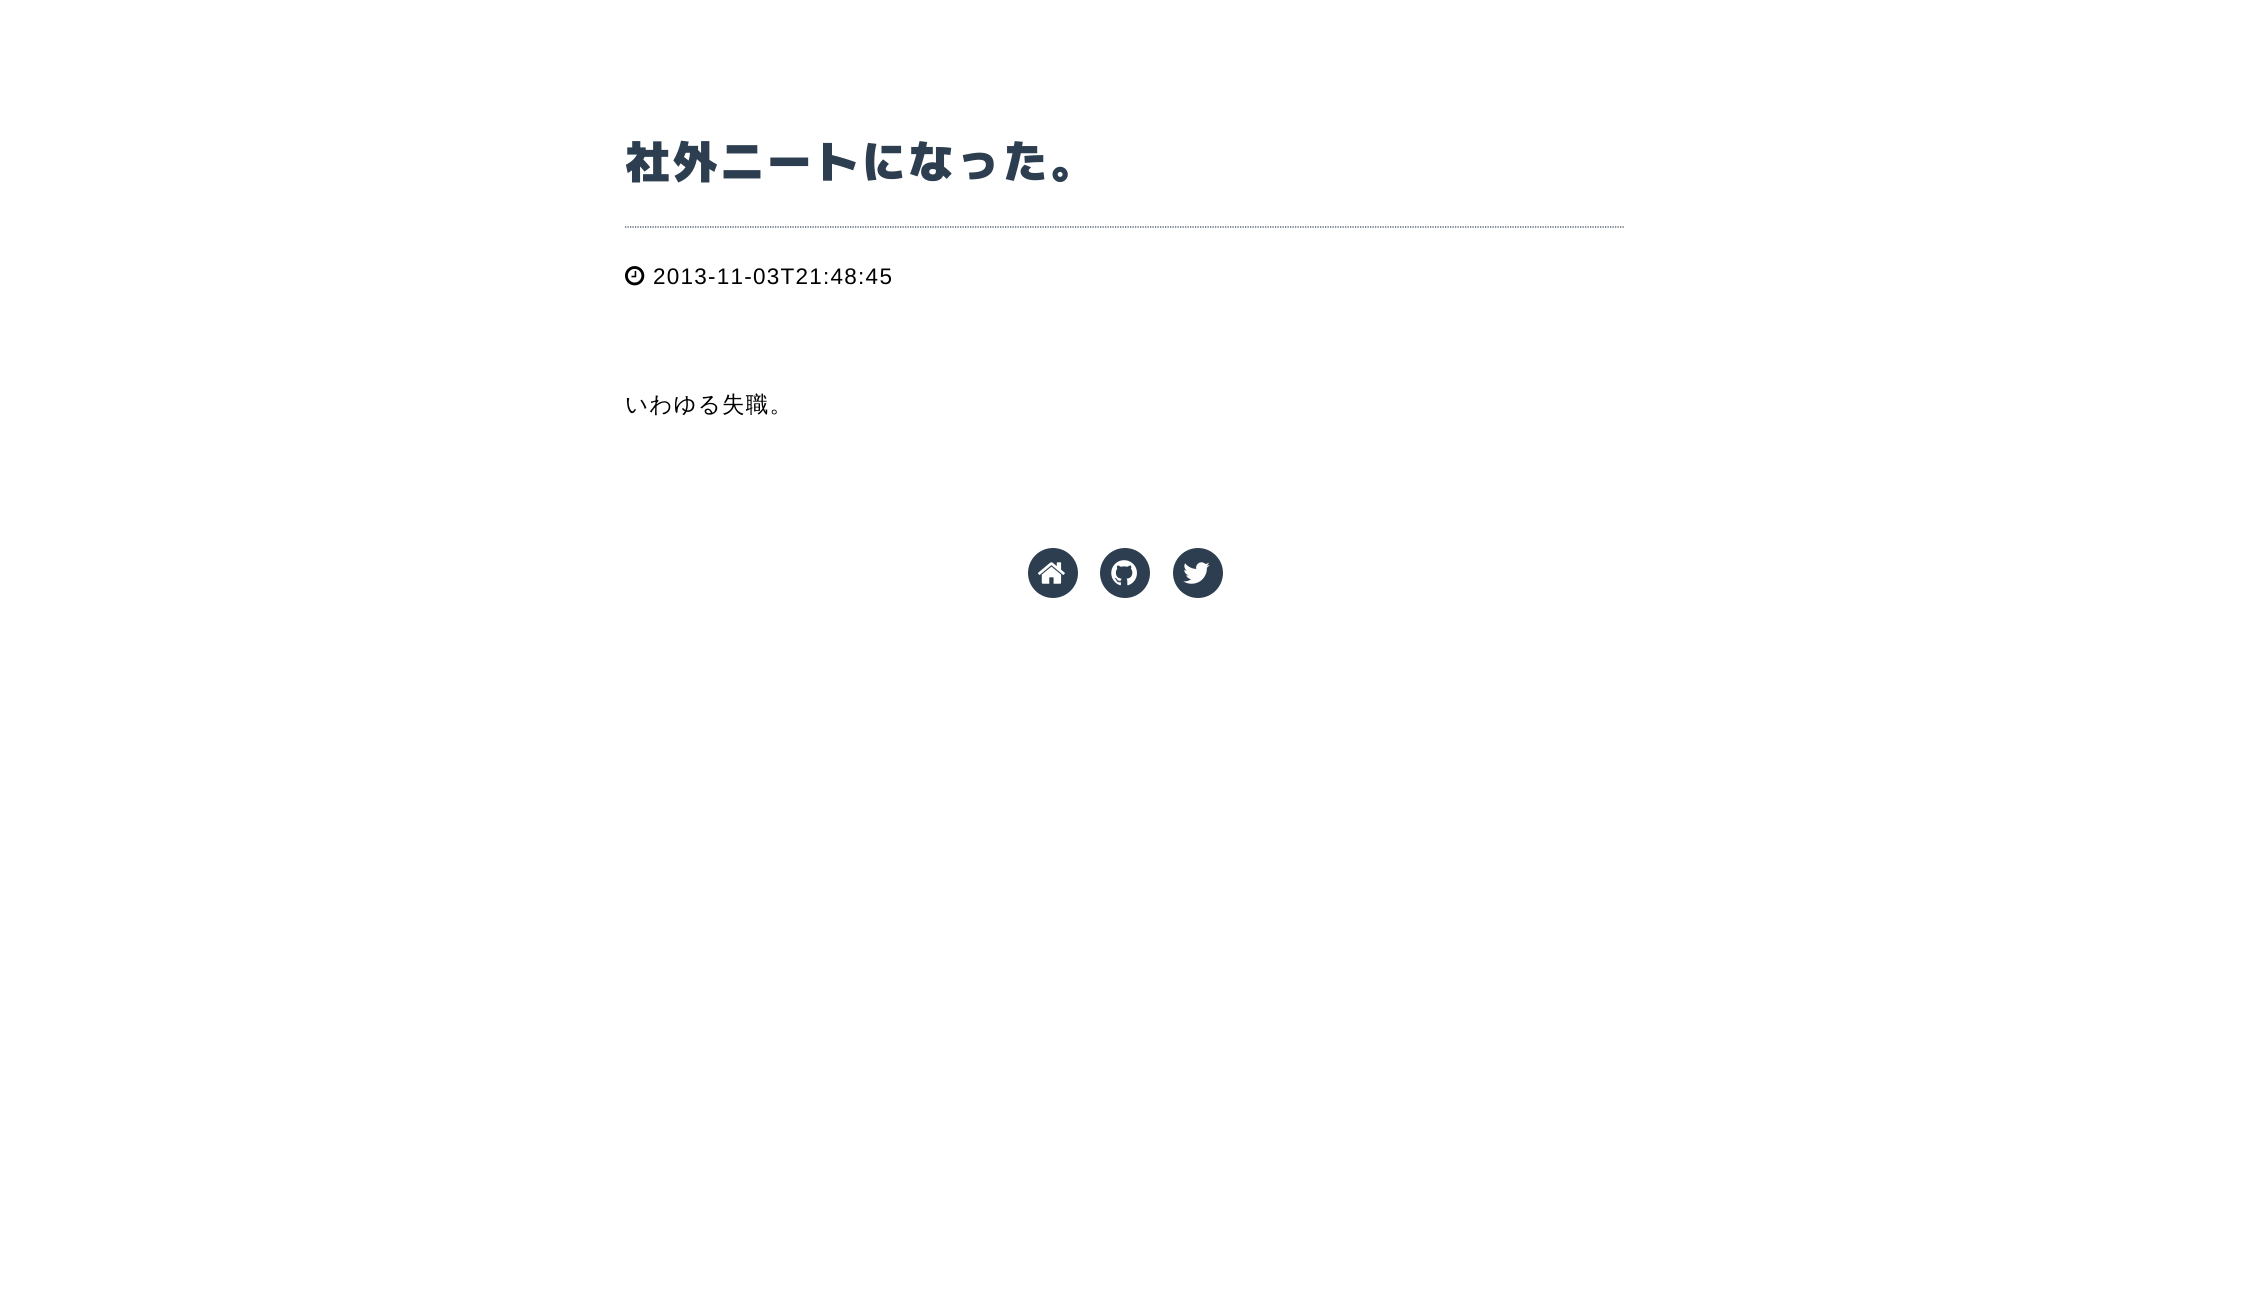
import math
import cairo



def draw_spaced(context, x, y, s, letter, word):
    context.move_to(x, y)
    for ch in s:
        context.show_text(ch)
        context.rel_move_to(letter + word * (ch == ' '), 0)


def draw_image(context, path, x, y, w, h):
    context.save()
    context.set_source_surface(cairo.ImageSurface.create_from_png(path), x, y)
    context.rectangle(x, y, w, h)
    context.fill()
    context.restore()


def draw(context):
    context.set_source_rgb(1, 1, 1)
    context.paint()
    context.new_path()
    context.move_to(625, 227)
    context.line_to(1625, 227)
    context.set_source_rgb(44 / 255, 62 / 255, 80 / 255)
    context.set_line_width(1.2)
    context.set_dash([1.25, 1.25])
    context.stroke()
    draw_image(context, "images/1.png", 625, 266, 20, 20)
    context.arc(1053, 573, 25, 0, 2 * math.pi)
    context.fill()
    draw_image(context, "images/2.png", 1038, 562, 27, 22)
    context.arc(1125, 573, 25, 0, 2 * math.pi)
    context.fill()
    draw_image(context, "images/3.png", 1111, 560, 26, 26)
    context.arc(1198, 573, 25, 0, 2 * math.pi)
    context.fill()
    draw_image(context, "images/4.png", 1183, 562, 27, 22)
    context.select_font_face("M PLUS 1p Black")
    context.set_font_size(45)
    draw_spaced(context, 625, 178, "社外ニートになった。", 2.25, 0)
    context.select_font_face("Liberation Sans")
    context.set_font_size(22.5)
    context.set_source_rgb(0, 0, 0)
    draw_spaced(context, 653, 284, "2013-11-03T21:48:45", 1.25, 0)
    context.select_font_face("WenQuanYi Zen Hei Medium")
    draw_spaced(context, 625, 412, "いわゆる失職。", 1.25, 0)


surface = cairo.ImageSurface(cairo.Format.RGB24, 2249, 1315)
context = cairo.Context(surface)
options = cairo.FontOptions()
options.set_hint_metrics(cairo.HintMetrics.OFF)
options.set_hint_style(cairo.HintStyle.NONE)
context.set_font_options(options)
context.set_miter_limit(4)
draw(context)
surface.write_to_png("out.png")
